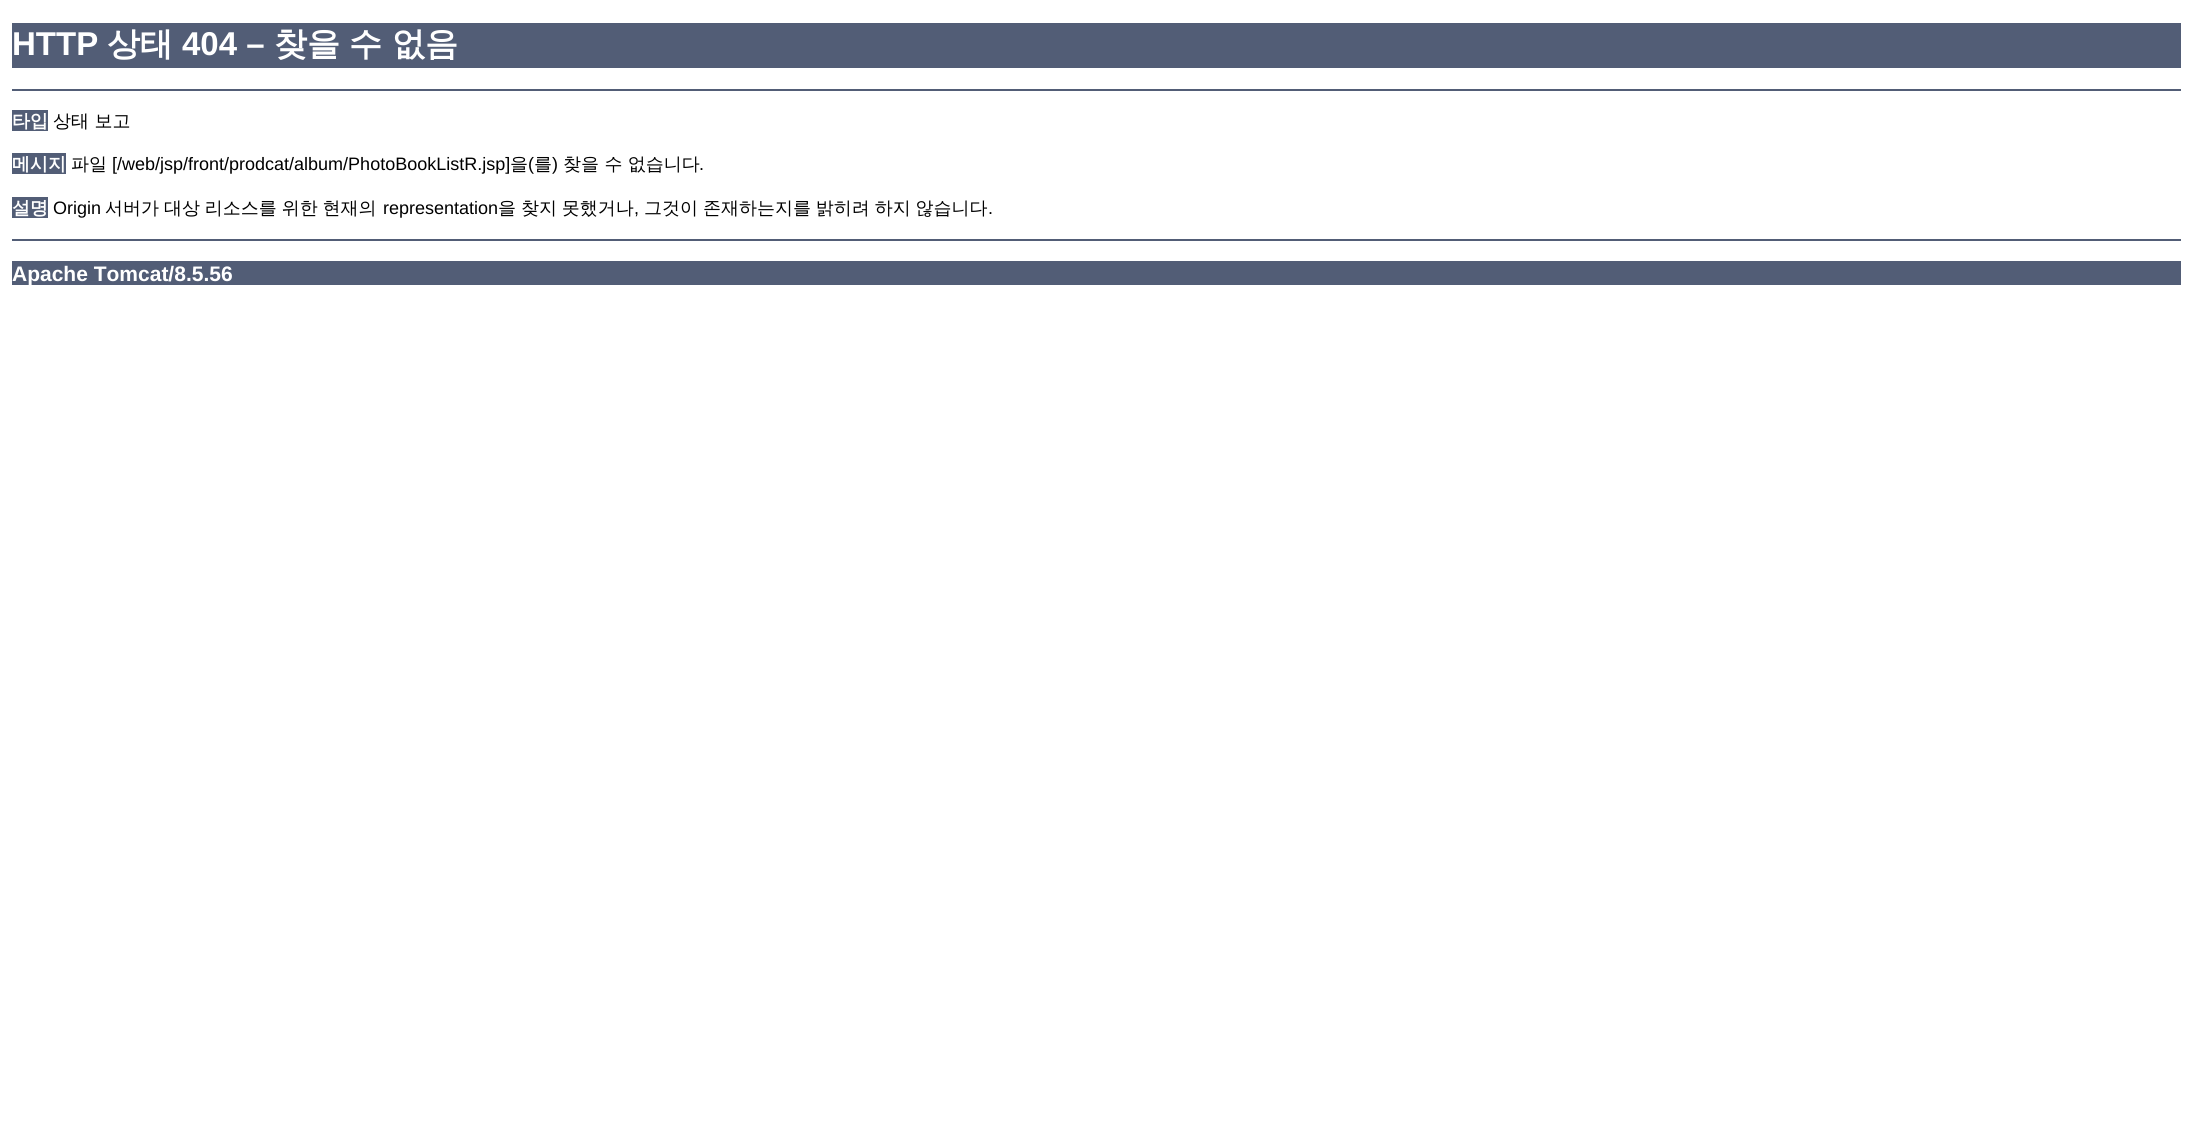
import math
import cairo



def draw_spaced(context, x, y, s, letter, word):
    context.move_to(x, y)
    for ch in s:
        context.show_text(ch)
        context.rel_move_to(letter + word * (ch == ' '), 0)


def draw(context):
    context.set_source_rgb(1, 1, 1)
    context.paint()
    context.set_source_rgb(82 / 255, 93 / 255, 118 / 255)
    context.rectangle(12, 23, 2169, 45)
    context.fill()
    context.rectangle(12, 89, 2169, 2)
    context.fill()
    context.rectangle(12, 110, 36, 21)
    context.fill()
    context.rectangle(12, 153, 54, 21)
    context.fill()
    context.rectangle(12, 197, 36, 21)
    context.fill()
    context.rectangle(12, 239, 2169, 2)
    context.fill()
    context.rectangle(12, 261, 2169, 24)
    context.fill()
    context.select_font_face("Liberation Sans", cairo.FontSlant.NORMAL, cairo.FontWeight.BOLD)
    context.set_font_size(33)
    context.set_source_rgb(1, 1, 1)
    context.move_to(12, 55)
    context.show_text("HTTP")
    context.select_font_face("WenQuanYi Zen Hei", cairo.FontSlant.NORMAL, cairo.FontWeight.BOLD)
    context.move_to(107, 55)
    context.show_text("상태")
    context.select_font_face("Liberation Sans", cairo.FontSlant.NORMAL, cairo.FontWeight.BOLD)
    context.move_to(182, 55)
    context.show_text("404 –")
    context.select_font_face("WenQuanYi Zen Hei", cairo.FontSlant.NORMAL, cairo.FontWeight.BOLD)
    context.move_to(274, 55)
    context.show_text("찾을")
    context.move_to(349, 55)
    context.show_text("수")
    context.move_to(392, 55)
    context.show_text("없음")
    context.set_font_size(18)
    context.move_to(12, 127)
    context.show_text("타입")
    context.select_font_face("WenQuanYi Zen Hei Medium")
    context.set_source_rgb(0, 0, 0)
    context.move_to(53, 127)
    context.show_text("상태 보고")
    context.select_font_face("WenQuanYi Zen Hei", cairo.FontSlant.NORMAL, cairo.FontWeight.BOLD)
    context.set_source_rgb(1, 1, 1)
    context.move_to(12, 170)
    context.show_text("메시지")
    context.select_font_face("WenQuanYi Zen Hei Medium")
    context.set_source_rgb(0, 0, 0)
    context.move_to(71, 170)
    context.show_text("파일")
    context.select_font_face("Liberation Sans")
    context.move_to(112, 170)
    context.show_text("[/web/jsp/front/prodcat/album/PhotoBookListR.jsp]")
    context.select_font_face("WenQuanYi Zen Hei Medium")
    context.move_to(510, 170)
    context.show_text("을")
    context.select_font_face("Liberation Sans")
    context.move_to(528, 170)
    context.show_text("(")
    context.select_font_face("WenQuanYi Zen Hei Medium")
    context.move_to(534, 170)
    context.show_text("를")
    context.select_font_face("Liberation Sans")
    context.move_to(552, 170)
    context.show_text(")")
    context.select_font_face("WenQuanYi Zen Hei Medium")
    context.move_to(563, 170)
    context.show_text("찾을 수 없습니다")
    context.select_font_face("Liberation Sans")
    context.move_to(699, 170)
    context.show_text(".")
    context.select_font_face("WenQuanYi Zen Hei", cairo.FontSlant.NORMAL, cairo.FontWeight.BOLD)
    context.set_source_rgb(1, 1, 1)
    context.move_to(12, 214)
    context.show_text("설명")
    context.select_font_face("Liberation Sans")
    context.set_source_rgb(0, 0, 0)
    context.move_to(53, 214)
    context.show_text("Origin")
    context.select_font_face("WenQuanYi Zen Hei Medium")
    draw_spaced(context, 105, 214, "서버가 대상 리소스를 위한 현재의", 0, -0.5)
    context.select_font_face("Liberation Sans")
    context.move_to(383, 214)
    context.show_text("representation")
    context.select_font_face("WenQuanYi Zen Hei Medium")
    draw_spaced(context, 498, 214, "을 찾지 못했거나", 0, -0.5)
    context.select_font_face("Liberation Sans")
    context.move_to(634, 214)
    context.show_text(",")
    context.select_font_face("WenQuanYi Zen Hei Medium")
    draw_spaced(context, 644, 214, "그것이 존재하는지를 밝히려 하지 않습니다", 0, -0.5)
    context.select_font_face("Liberation Sans")
    context.move_to(988, 214)
    context.show_text(".")
    context.select_font_face("Liberation Sans", cairo.FontSlant.NORMAL, cairo.FontWeight.BOLD)
    context.set_font_size(21)
    context.set_source_rgb(1, 1, 1)
    context.move_to(12, 281)
    context.show_text("Apache Tomcat/8.5.56")


surface = cairo.ImageSurface(cairo.Format.RGB24, 2192, 1139)
context = cairo.Context(surface)
options = cairo.FontOptions()
options.set_hint_metrics(cairo.HintMetrics.OFF)
options.set_hint_style(cairo.HintStyle.NONE)
context.set_font_options(options)
context.set_miter_limit(4)
draw(context)
surface.write_to_png("out.png")
